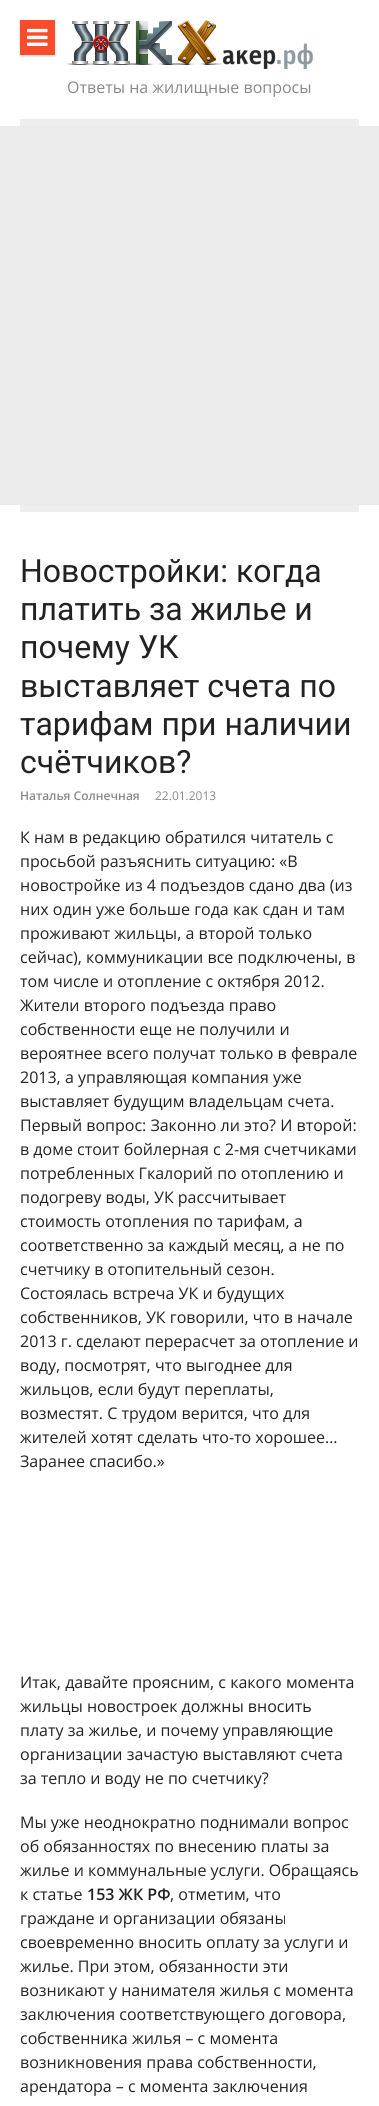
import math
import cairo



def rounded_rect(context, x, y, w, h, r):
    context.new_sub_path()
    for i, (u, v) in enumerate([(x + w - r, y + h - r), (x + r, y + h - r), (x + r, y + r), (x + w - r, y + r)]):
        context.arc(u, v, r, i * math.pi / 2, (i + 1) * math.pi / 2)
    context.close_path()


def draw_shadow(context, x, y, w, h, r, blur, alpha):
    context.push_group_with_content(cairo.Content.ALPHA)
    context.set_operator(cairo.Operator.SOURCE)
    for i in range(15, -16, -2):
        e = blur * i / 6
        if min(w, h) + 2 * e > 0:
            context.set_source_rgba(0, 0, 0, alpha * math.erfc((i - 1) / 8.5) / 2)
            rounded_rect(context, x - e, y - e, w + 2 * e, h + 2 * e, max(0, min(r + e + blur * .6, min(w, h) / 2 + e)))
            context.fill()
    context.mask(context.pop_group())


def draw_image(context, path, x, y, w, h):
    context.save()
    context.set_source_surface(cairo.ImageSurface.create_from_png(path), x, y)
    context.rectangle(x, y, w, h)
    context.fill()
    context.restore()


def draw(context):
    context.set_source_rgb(1, 1, 1)
    context.paint()
    context.set_source_rgb(0, 0, 0)
    draw_shadow(context, 20, 21, 35, 35, 0, 1, 0.2)
    context.set_source_rgb(250 / 255, 76 / 255, 42 / 255)
    context.rectangle(20, 20, 35, 35)
    context.fill()
    draw_image(context, "images/1.png", 27, 28, 21, 18)
    draw_image(context, "images/2.png", 66, 20, 247, 49)
    context.set_source_rgb(238 / 255, 238 / 255, 238 / 255)
    context.rectangle(20, 119, 339, 393)
    context.fill()
    context.set_source_rgb(235 / 255, 235 / 255, 235 / 255)
    context.rectangle(0, 126, 379, 379)
    context.fill()
    context.select_font_face("Open Sans")
    context.set_font_size(16)
    context.set_source_rgb(136 / 255, 136 / 255, 136 / 255)
    context.move_to(67, 93)
    context.show_text("Ответы на жилищные вопросы")
    context.select_font_face("Roboto")
    context.set_font_size(32)
    context.set_source_rgb(34 / 255, 34 / 255, 34 / 255)
    context.move_to(20, 582)
    context.show_text("Новостройки: когда")
    context.move_to(20, 620)
    context.show_text("платить за жилье и")
    context.move_to(20, 658)
    context.show_text("почему УК")
    context.move_to(20, 697)
    context.show_text("выставляет счета по")
    context.move_to(20, 735)
    context.show_text("тарифам при наличии")
    context.move_to(20, 773)
    context.show_text("счётчиков?")
    context.select_font_face("Open Sans SemiBold")
    context.set_font_size(12)
    context.set_source_rgb(136 / 255, 136 / 255, 136 / 255)
    context.move_to(20, 800)
    context.show_text("Наталья Солнечная")
    context.select_font_face("Open Sans")
    context.move_to(155, 800)
    context.show_text("22.01.2013")
    context.set_font_size(16)
    context.set_source_rgb(34 / 255, 34 / 255, 34 / 255)
    context.move_to(20, 843)
    context.show_text("К нам в редакцию обратился читатель с")
    context.move_to(20, 867)
    context.show_text("просьбой разъяснить ситуацию: «В")
    context.move_to(20, 891)
    context.show_text("новостройке из 4 подъездов сдано два (из")
    context.move_to(20, 915)
    context.show_text("них один уже больше года как сдан и там")
    context.move_to(20, 939)
    context.show_text("проживают жильцы, а второй только")
    context.move_to(20, 963)
    context.show_text("сейчас), коммуникации все подключены, в")
    context.move_to(20, 987)
    context.show_text("том числе и отопление с октября 2012.")
    context.move_to(20, 1011)
    context.show_text("Жители второго подъезда право")
    context.move_to(20, 1035)
    context.show_text("собственности еще не получили и")
    context.move_to(20, 1059)
    context.show_text("вероятнее всего получат только в феврале")
    context.move_to(20, 1083)
    context.show_text("2013, а управляющая компания уже")
    context.move_to(20, 1107)
    context.show_text("выставляет будущим владельцам счета.")
    context.move_to(20, 1131)
    context.show_text("Первый вопрос: Законно ли это? И второй:")
    context.move_to(20, 1155)
    context.show_text("в доме стоит бойлерная с 2-мя счетчиками")
    context.move_to(20, 1179)
    context.show_text("потребленных Гкалорий по отоплению и")
    context.move_to(20, 1203)
    context.show_text("подогреву воды, УК рассчитывает")
    context.move_to(20, 1227)
    context.show_text("стоимость отопления по тарифам, а")
    context.move_to(20, 1251)
    context.show_text("соответственно за каждый месяц, а не по")
    context.move_to(20, 1275)
    context.show_text("счетчику в отопительный сезон.")
    context.move_to(20, 1299)
    context.show_text("Состоялась встреча УК и будущих")
    context.move_to(20, 1323)
    context.show_text("собственников, УК говорили, что в начале")
    context.move_to(20, 1347)
    context.show_text("2013 г. сделают перерасчет за отопление и")
    context.move_to(20, 1371)
    context.show_text("воду, посмотрят, что выгоднее для")
    context.move_to(20, 1395)
    context.show_text("жильцов, если будут переплаты,")
    context.move_to(20, 1419)
    context.show_text("возместят. С трудом верится, что для")
    context.move_to(20, 1443)
    context.show_text("жителей хотят сделать что-то хорошее…")
    context.move_to(20, 1467)
    context.show_text("Заранее спасибо.»")
    context.move_to(20, 1688)
    context.show_text("Итак, давайте проясним, с какого момента")
    context.move_to(20, 1712)
    context.show_text("жильцы новостроек должны вносить")
    context.move_to(20, 1736)
    context.show_text("плату за жилье, и почему управляющие")
    context.move_to(20, 1760)
    context.show_text("организации зачастую выставляют счета")
    context.move_to(20, 1784)
    context.show_text("за тепло и воду не по счетчику?")
    context.move_to(20, 1828)
    context.show_text("Мы уже неоднократно поднимали вопрос")
    context.move_to(20, 1852)
    context.show_text("об обязанностях по внесению платы за")
    context.move_to(20, 1876)
    context.show_text("жилье и коммунальные услуги. Обращаясь")
    context.move_to(20, 1900)
    context.show_text("к статье")
    context.select_font_face("Open Sans SemiBold")
    context.move_to(87, 1900)
    context.show_text("153 ЖК РФ")
    context.select_font_face("Open Sans")
    context.move_to(170, 1900)
    context.show_text(", отметим, что")
    context.move_to(20, 1924)
    context.show_text("граждане и организации обязаны")
    context.move_to(20, 1948)
    context.show_text("своевременно вносить оплату за услуги и")
    context.move_to(20, 1972)
    context.show_text("жилье. При этом, обязанности эти")
    context.move_to(20, 1996)
    context.show_text("возникают у нанимателя жилья с момента")
    context.move_to(20, 2020)
    context.show_text("заключения соответствующего договора,")
    context.move_to(20, 2044)
    context.show_text("собственника жилья – с момента")
    context.move_to(20, 2068)
    context.show_text("возникновения права собственности,")
    context.move_to(20, 2092)
    context.show_text("арендатора – с момента заключения")


surface = cairo.ImageSurface(cairo.Format.RGB24, 379, 2106)
context = cairo.Context(surface)
options = cairo.FontOptions()
options.set_hint_metrics(cairo.HintMetrics.OFF)
options.set_hint_style(cairo.HintStyle.NONE)
context.set_font_options(options)
context.set_miter_limit(4)
draw(context)
surface.write_to_png("out.png")
